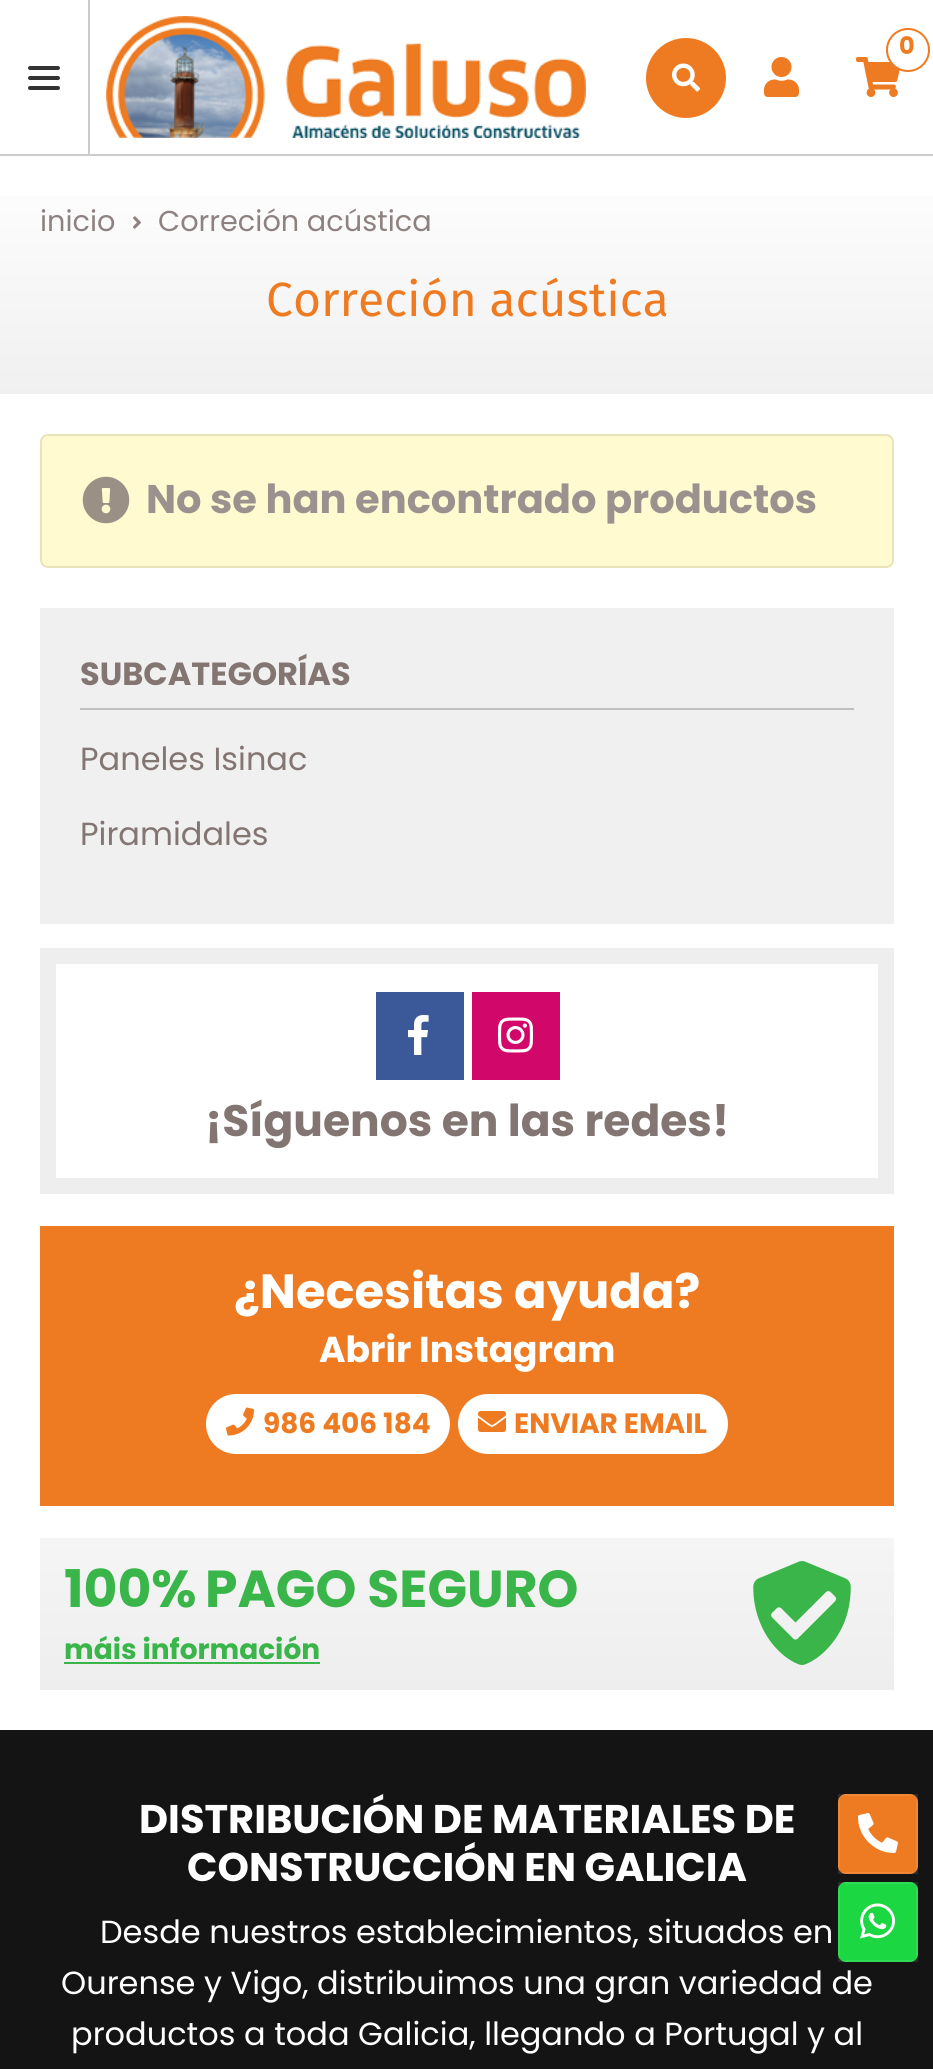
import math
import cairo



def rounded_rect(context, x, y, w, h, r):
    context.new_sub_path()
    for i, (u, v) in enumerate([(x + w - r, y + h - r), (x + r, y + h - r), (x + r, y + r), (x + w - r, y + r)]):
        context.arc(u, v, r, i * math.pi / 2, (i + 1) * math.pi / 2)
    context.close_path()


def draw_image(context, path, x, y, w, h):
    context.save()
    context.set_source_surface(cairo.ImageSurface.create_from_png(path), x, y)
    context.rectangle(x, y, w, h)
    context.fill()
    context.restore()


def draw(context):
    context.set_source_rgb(1, 1, 1)
    context.paint()
    context.set_source_rgb(204 / 255, 204 / 255, 204 / 255)
    context.rectangle(0, 154, 933, 2)
    context.fill()
    context.rectangle(88, 0, 2, 154)
    context.fill()
    context.set_source_rgb(51 / 255, 51 / 255, 51 / 255)
    rounded_rect(context, 28, 66, 32, 4, 2)
    context.fill()
    rounded_rect(context, 28, 76, 32, 4, 2)
    context.fill()
    rounded_rect(context, 28, 86, 32, 4, 2)
    context.fill()
    draw_image(context, "images/1.png", 106, 16, 480, 122)
    context.set_source_rgb(20 / 255, 20 / 255, 20 / 255)
    context.rectangle(0, 1730, 933, 339)
    context.fill()
    context.set_source_rgb(238 / 255, 123 / 255, 34 / 255)
    rounded_rect(context, 838, 1794, 80, 80, 8)
    context.fill()
    context.rectangle(839, 1795, 78, 78)
    context.set_source_rgba(1, 1, 1, 0.1)
    context.stroke()
    draw_image(context, "images/2.png", 858, 1813, 40, 40)
    context.set_source_rgb(27 / 255, 215 / 255, 65 / 255)
    rounded_rect(context, 838, 1882, 80, 80, 8)
    context.fill()
    context.rectangle(839, 1883, 78, 78)
    context.set_source_rgba(1, 1, 1, 0.1)
    context.stroke()
    draw_image(context, "images/3.png", 860, 1903, 35, 36)
    context.set_source_rgb(238 / 255, 123 / 255, 34 / 255)
    context.arc(686, 78, 40, 0, 2 * math.pi)
    context.fill()
    draw_image(context, "images/4.png", 672, 63, 28, 29)
    draw_image(context, "images/5.png", 856, 57, 44, 40)
    context.set_source_rgb(1, 1, 1)
    context.arc(908, 50, 21, 0, 2 * math.pi)
    context.fill_preserve()
    context.set_source_rgb(238 / 255, 123 / 255, 34 / 255)
    context.stroke()
    draw_image(context, "images/6.png", 764, 57, 35, 40)
    gradient = cairo.LinearGradient(467, 156, 467, 394)
    gradient.add_color_stop_rgba(0, 1, 1, 1, 1)
    gradient.add_color_stop_rgba(1, 240 / 255, 240 / 255, 240 / 255, 1)
    context.set_source(gradient)
    context.rectangle(0, 196, 933, 198)
    context.fill()
    draw_image(context, "images/7.png", 133, 216, 8, 13)
    context.set_source_rgb(1, 250 / 255, 208 / 255)
    rounded_rect(context, 41, 435, 852, 132, 7)
    context.fill_preserve()
    context.set_source_rgb(232 / 255, 227 / 255, 185 / 255)
    context.stroke()
    draw_image(context, "images/8.png", 82, 476, 48, 48)
    context.set_source_rgb(240 / 255, 240 / 255, 240 / 255)
    context.rectangle(40, 608, 854, 316)
    context.fill()
    context.set_source_rgb(192 / 255, 192 / 255, 192 / 255)
    context.rectangle(80, 708, 774, 2)
    context.fill()
    context.rectangle(48, 956, 838, 230)
    context.set_source_rgb(238 / 255, 238 / 255, 238 / 255)
    context.set_line_width(16)
    context.stroke()
    context.set_source_rgb(59 / 255, 89 / 255, 152 / 255)
    context.rectangle(376, 992, 88, 88)
    context.fill()
    draw_image(context, "images/9.png", 408, 1015, 21, 40)
    context.set_source_rgb(209 / 255, 8 / 255, 105 / 255)
    context.rectangle(472, 992, 88, 88)
    context.fill()
    draw_image(context, "images/10.png", 498, 1017, 35, 36)
    context.set_source_rgb(238 / 255, 123 / 255, 34 / 255)
    context.rectangle(40, 1226, 854, 280)
    context.fill()
    context.set_source_rgb(1, 1, 1)
    rounded_rect(context, 206, 1394, 244, 60, 30)
    context.fill()
    draw_image(context, "images/11.png", 226, 1407, 28, 29)
    rounded_rect(context, 458, 1394, 270, 60, 30)
    context.fill()
    draw_image(context, "images/12.png", 478, 1411, 28, 21)
    gradient = cairo.LinearGradient(467, 1538, 467, 1690)
    gradient.add_color_stop_rgba(0, 245 / 255, 245 / 255, 245 / 255, 1)
    gradient.add_color_stop_rgba(1, 238 / 255, 238 / 255, 238 / 255, 1)
    context.set_source(gradient)
    context.rectangle(40, 1538, 854, 152)
    context.fill()
    context.set_source_rgb(57 / 255, 181 / 255, 73 / 255)
    context.rectangle(64, 1662, 256, 2)
    context.fill()
    draw_image(context, "images/13.png", 753, 1561, 98, 104)
    context.select_font_face("Poppins", cairo.FontSlant.NORMAL, cairo.FontWeight.BOLD)
    context.set_font_size(24)
    context.set_source_rgb(238 / 255, 123 / 255, 34 / 255)
    context.move_to(899, 54)
    context.show_text("0")
    context.select_font_face("Poppins")
    context.set_font_size(28.75)
    context.set_source_rgb(142 / 255, 130 / 255, 128 / 255)
    context.move_to(40, 231)
    context.show_text("inicio")
    context.move_to(158, 231)
    context.show_text("Correción acústica")
    context.select_font_face("Fira Sans")
    context.set_font_size(48)
    context.set_source_rgb(238 / 255, 123 / 255, 34 / 255)
    context.move_to(266, 316)
    context.show_text("Correción acústica")
    context.select_font_face("Poppins", cairo.FontSlant.NORMAL, cairo.FontWeight.BOLD)
    context.set_font_size(40)
    context.set_source_rgb(155 / 255, 145 / 255, 142 / 255)
    context.move_to(146, 513)
    context.show_text("No se han encontrado productos")
    context.set_font_size(32)
    context.set_source_rgb(130 / 255, 117 / 255, 114 / 255)
    context.move_to(80, 685)
    context.show_text("SUBCATEGORÍAS")
    context.select_font_face("Poppins")
    context.move_to(80, 770)
    context.show_text("Paneles Isinac")
    context.move_to(80, 845)
    context.show_text("Piramidales")
    context.select_font_face("Poppins", cairo.FontSlant.NORMAL, cairo.FontWeight.BOLD)
    context.set_font_size(44)
    context.move_to(205, 1136)
    context.show_text("¡Síguenos en las redes!")
    context.set_font_size(48)
    context.set_source_rgb(1, 1, 1)
    context.move_to(234, 1308)
    context.show_text("¿Necesitas ayuda?")
    context.set_font_size(36)
    context.move_to(319, 1362)
    context.show_text("Abrir Instagram")
    context.set_font_size(28)
    context.set_source_rgb(238 / 255, 123 / 255, 34 / 255)
    context.move_to(263, 1433)
    context.show_text("986 406 184")
    context.move_to(514, 1433)
    context.show_text("ENVIAR EMAIL")
    context.set_font_size(52)
    context.set_source_rgb(57 / 255, 181 / 255, 73 / 255)
    context.move_to(64, 1607)
    context.show_text("100%")
    context.move_to(205, 1607)
    context.show_text("PAGO SEGURO")
    context.set_font_size(28)
    context.move_to(64, 1659)
    context.show_text("máis información")
    context.set_font_size(40)
    context.set_source_rgb(1, 1, 1)
    context.move_to(139, 1833)
    context.show_text("DISTRIBUCIÓN DE MATERIALES DE")
    context.move_to(187, 1881)
    context.show_text("CONSTRUCCIÓN EN GALICIA")
    context.select_font_face("Poppins")
    context.set_font_size(32)
    context.move_to(100, 1943)
    context.show_text("Desde nuestros establecimientos, situados en")
    context.move_to(61, 1994)
    context.show_text("Ourense y Vigo, distribuimos una gran variedad de")
    context.move_to(71, 2045)
    context.show_text("productos a toda Galicia, llegando a Portugal y al")


surface = cairo.ImageSurface(cairo.Format.RGB24, 933, 2069)
context = cairo.Context(surface)
options = cairo.FontOptions()
options.set_hint_metrics(cairo.HintMetrics.OFF)
options.set_hint_style(cairo.HintStyle.NONE)
context.set_font_options(options)
context.set_miter_limit(4)
draw(context)
surface.write_to_png("out.png")
